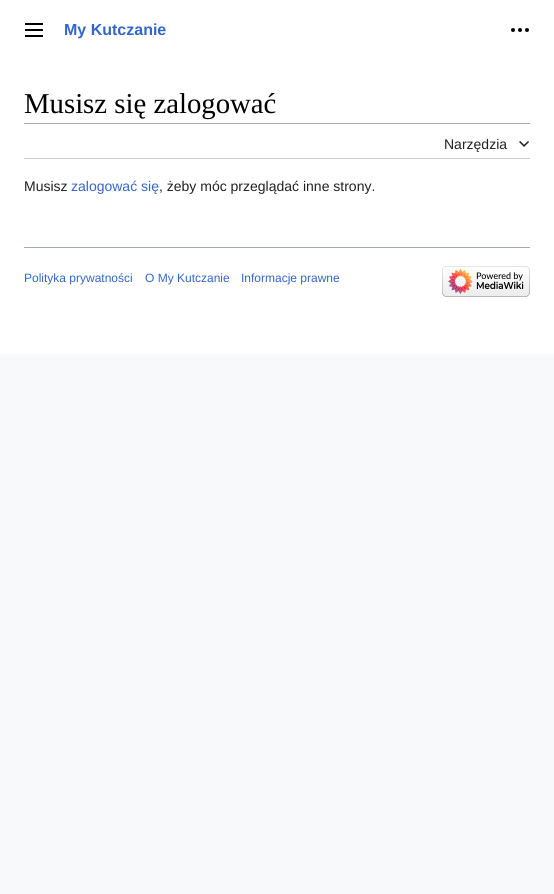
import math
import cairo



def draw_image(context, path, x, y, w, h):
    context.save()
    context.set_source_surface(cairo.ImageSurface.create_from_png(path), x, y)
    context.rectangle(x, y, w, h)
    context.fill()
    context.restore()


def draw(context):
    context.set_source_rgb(248 / 255, 249 / 255, 250 / 255)
    context.paint()
    context.set_source_rgb(1, 1, 1)
    context.rectangle(0, 0, 554, 354)
    context.fill()
    draw_image(context, "images/1.png", 25, 23, 18, 14)
    draw_image(context, "images/2.png", 511, 28, 18, 4)
    context.set_source_rgb(162 / 255, 169 / 255, 177 / 255)
    context.rectangle(24, 123, 506, 1)
    context.fill()
    context.set_source_rgb(200 / 255, 204 / 255, 209 / 255)
    context.rectangle(24, 158, 506, 1)
    context.fill()
    draw_image(context, "images/3.png", 519, 141, 10, 6)
    context.set_source_rgb(162 / 255, 169 / 255, 177 / 255)
    context.rectangle(24, 247, 506, 1)
    context.fill()
    draw_image(context, "images/4.png", 442, 266, 88, 31)
    context.select_font_face("Liberation Sans", cairo.FontSlant.NORMAL, cairo.FontWeight.BOLD)
    context.set_font_size(16)
    context.set_source_rgb(51 / 255, 102 / 255, 204 / 255)
    context.move_to(64, 35)
    context.show_text("My Kutczanie")
    context.select_font_face("Liberation Serif")
    context.set_font_size(28.75)
    context.set_source_rgb(0, 0, 0)
    context.move_to(24, 113)
    context.show_text("Musisz się zalogować")
    context.select_font_face("Liberation Sans")
    context.set_font_size(14)
    context.set_source_rgb(32 / 255, 33 / 255, 34 / 255)
    context.move_to(444, 149)
    context.show_text("Narzędzia")
    context.move_to(24, 191)
    context.show_text("Musisz")
    context.set_source_rgb(51 / 255, 102 / 255, 204 / 255)
    context.move_to(71, 191)
    context.show_text("zalogować się")
    context.set_source_rgb(32 / 255, 33 / 255, 34 / 255)
    context.move_to(159, 191)
    context.show_text(", żeby móc przeglądać inne strony.")
    context.set_font_size(12)
    context.set_source_rgb(51 / 255, 102 / 255, 204 / 255)
    context.move_to(24, 282)
    context.show_text("Polityka prywatności")
    context.move_to(145, 282)
    context.show_text("O My Kutczanie")
    context.move_to(241, 282)
    context.show_text("Informacje prawne")


surface = cairo.ImageSurface(cairo.Format.RGB24, 554, 894)
context = cairo.Context(surface)
options = cairo.FontOptions()
options.set_hint_metrics(cairo.HintMetrics.OFF)
options.set_hint_style(cairo.HintStyle.NONE)
context.set_font_options(options)
context.set_miter_limit(4)
draw(context)
surface.write_to_png("out.png")
